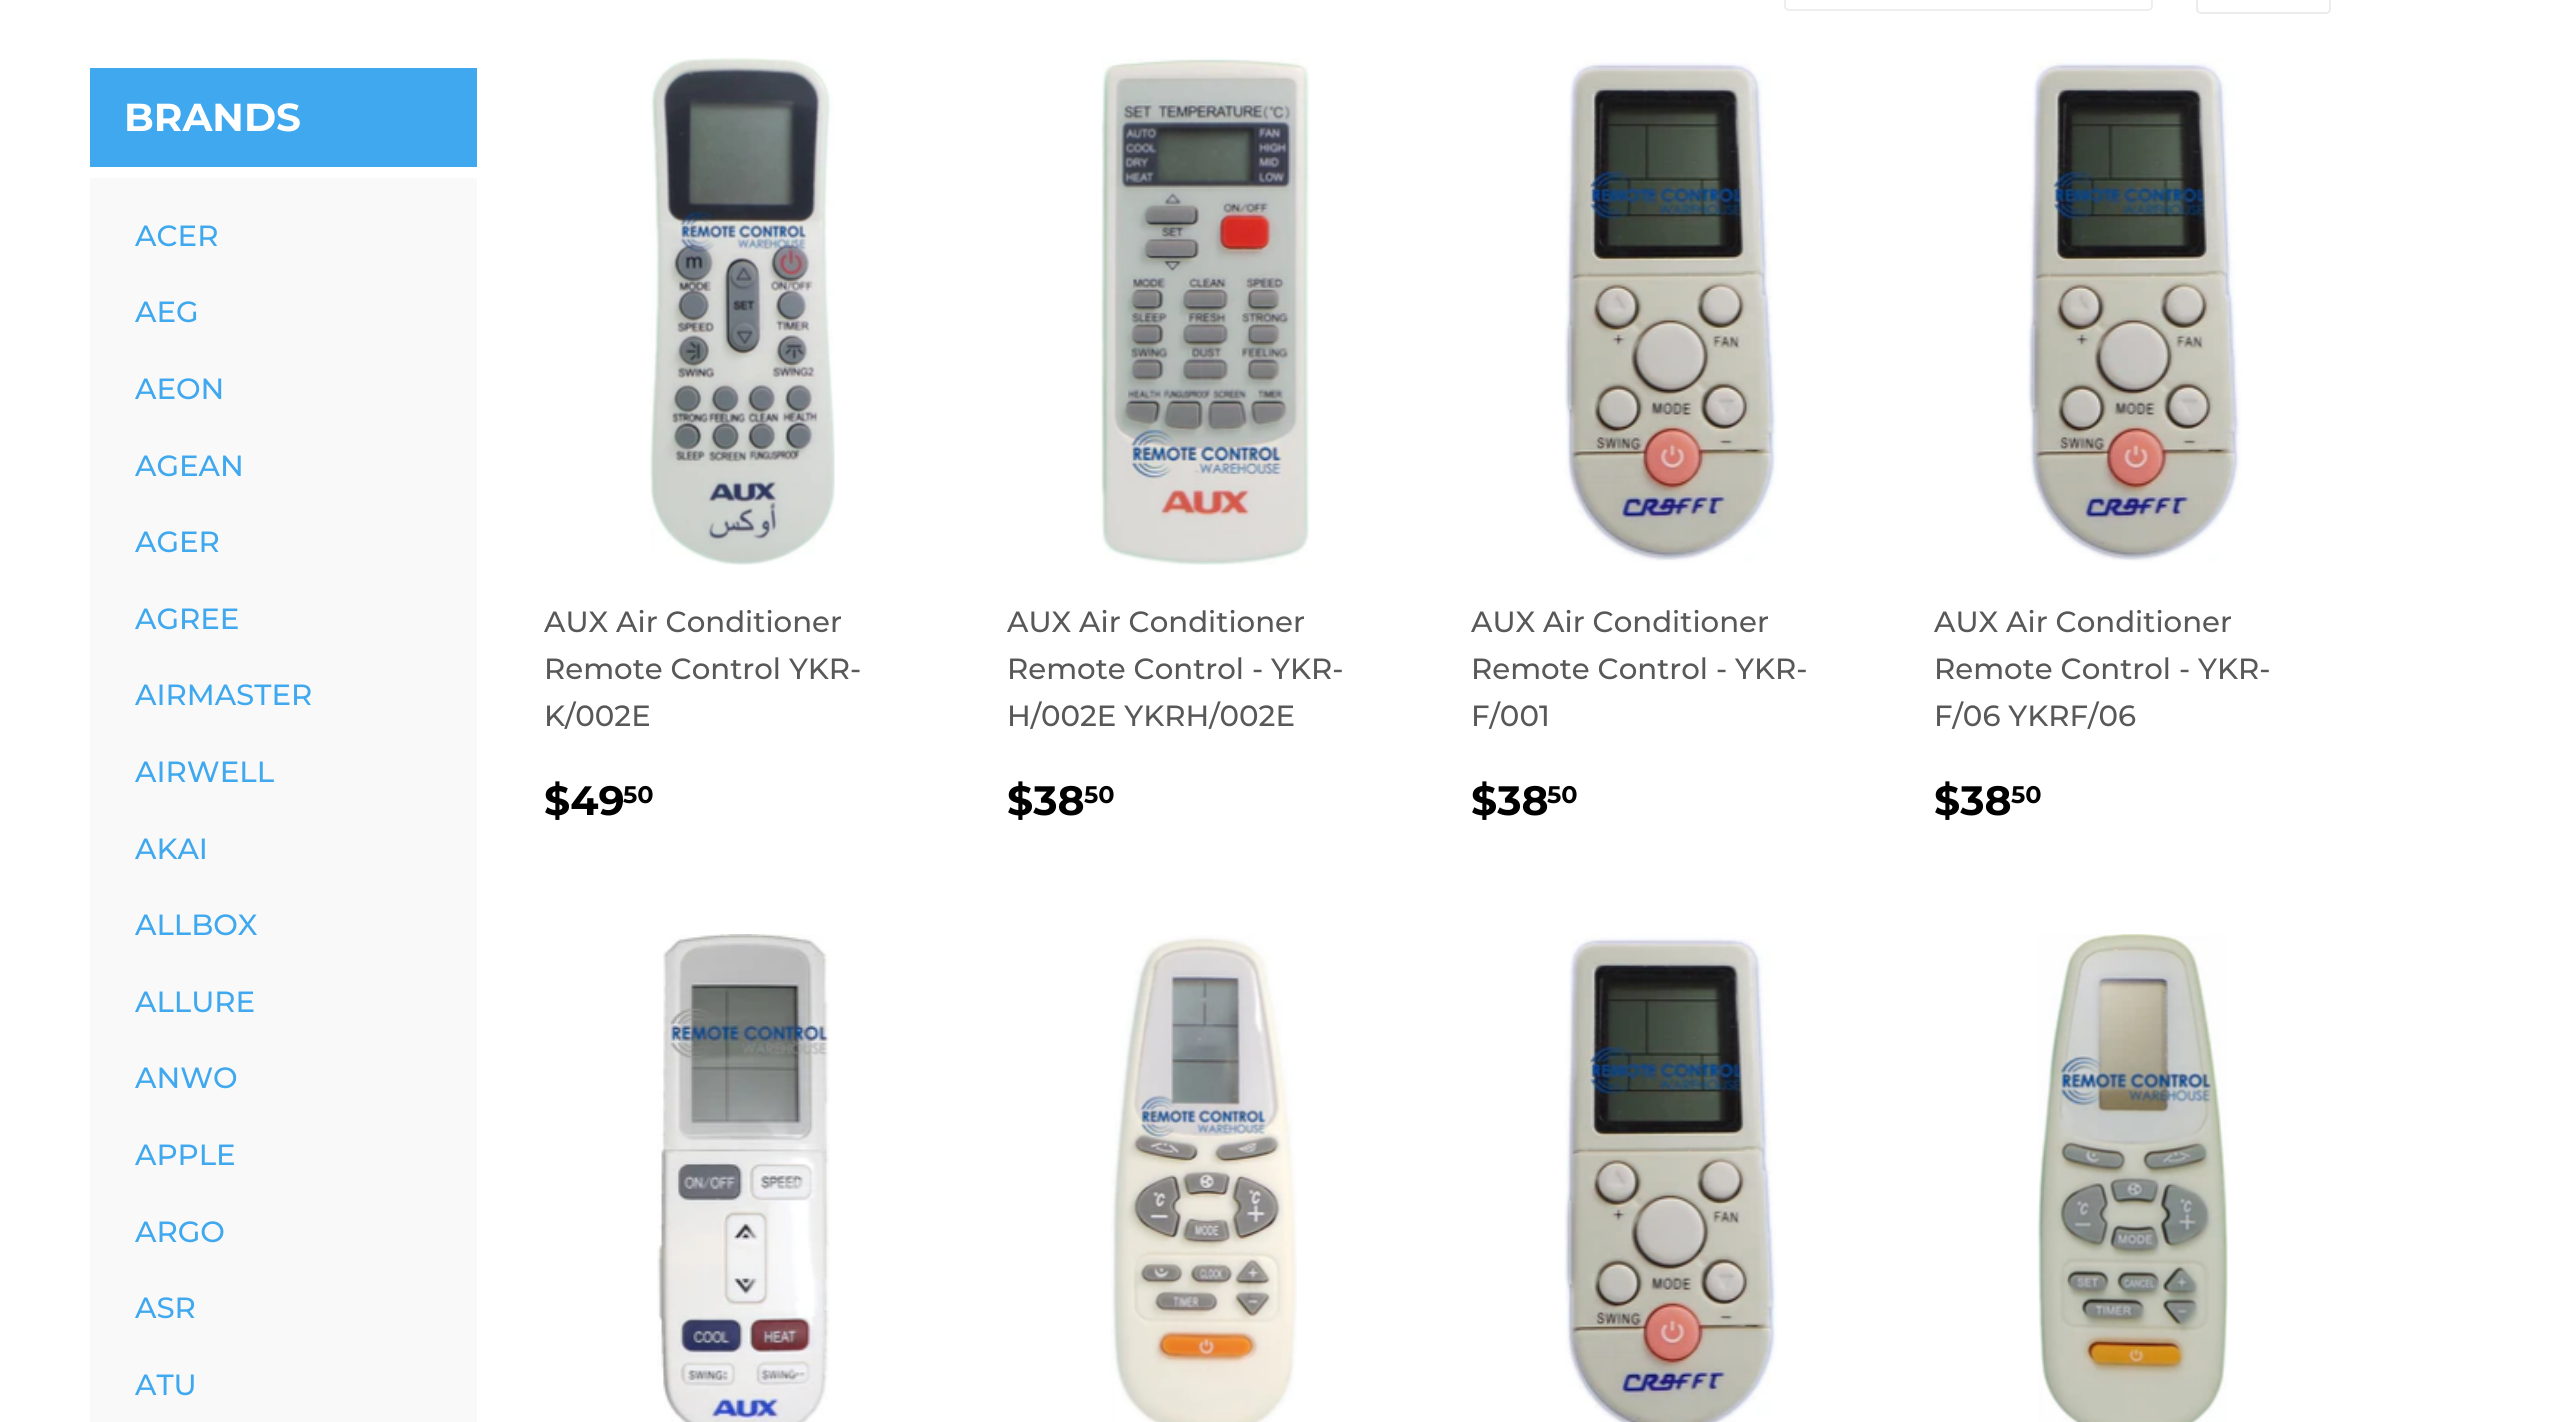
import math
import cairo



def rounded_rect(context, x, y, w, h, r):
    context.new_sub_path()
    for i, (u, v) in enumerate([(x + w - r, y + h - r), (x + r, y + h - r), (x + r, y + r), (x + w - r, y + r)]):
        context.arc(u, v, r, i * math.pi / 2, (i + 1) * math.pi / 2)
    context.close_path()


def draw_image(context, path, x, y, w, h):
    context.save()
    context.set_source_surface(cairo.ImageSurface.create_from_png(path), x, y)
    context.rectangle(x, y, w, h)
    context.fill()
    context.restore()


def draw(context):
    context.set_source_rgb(1, 1, 1)
    context.paint()
    context.set_source_rgb(63 / 255, 168 / 255, 238 / 255)
    context.rectangle(90, 68, 387, 99)
    context.fill()
    context.set_source_rgb(249 / 255, 249 / 255, 249 / 255)
    context.rectangle(90, 178, 387, 1244)
    context.fill()
    rounded_rect(context, 1785, -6, 367, 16, 4)
    context.set_source_rgb(238 / 255, 238 / 255, 238 / 255)
    context.stroke()
    rounded_rect(context, 2197, -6, 133, 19, 4)
    context.set_source_rgb(236 / 255, 236 / 255, 236 / 255)
    context.stroke()
    draw_image(context, "images/1.png", 649, 57, 186, 508)
    draw_image(context, "images/2.png", 1101, 58, 209, 507)
    draw_image(context, "images/3.png", 1564, 59, 214, 503)
    draw_image(context, "images/4.png", 2027, 59, 215, 503)
    draw_image(context, "images/5.png", 657, 934, 173, 488)
    draw_image(context, "images/6.png", 1110, 935, 187, 487)
    draw_image(context, "images/7.png", 1564, 934, 214, 488)
    draw_image(context, "images/8.png", 2037, 934, 191, 488)
    context.select_font_face("Montserrat", cairo.FontSlant.NORMAL, cairo.FontWeight.BOLD)
    context.set_font_size(39)
    context.set_source_rgb(1, 1, 1)
    context.move_to(124, 131)
    context.show_text("BRANDS")
    context.select_font_face("Montserrat Medium")
    context.set_font_size(29.25)
    context.set_source_rgb(63 / 255, 168 / 255, 238 / 255)
    context.move_to(135, 246)
    context.show_text("ACER")
    context.move_to(135, 322)
    context.show_text("AEG")
    context.move_to(135, 399)
    context.show_text("AEON")
    context.move_to(135, 476)
    context.show_text("AGEAN")
    context.move_to(135, 552)
    context.show_text("AGER")
    context.move_to(135, 629)
    context.show_text("AGREE")
    context.move_to(135, 705)
    context.show_text("AIRMASTER")
    context.move_to(135, 782)
    context.show_text("AIRWELL")
    context.move_to(135, 859)
    context.show_text("AKAI")
    context.move_to(135, 935)
    context.show_text("ALLBOX")
    context.move_to(135, 1012)
    context.show_text("ALLURE")
    context.move_to(135, 1088)
    context.show_text("ANWO")
    context.move_to(135, 1165)
    context.show_text("APPLE")
    context.move_to(135, 1242)
    context.show_text("ARGO")
    context.move_to(135, 1318)
    context.show_text("ASR")
    context.move_to(135, 1395)
    context.show_text("ATU")
    context.set_source_rgb(88 / 255, 88 / 255, 88 / 255)
    context.move_to(544, 632)
    context.show_text("AUX Air Conditioner")
    context.move_to(544, 679)
    context.show_text("Remote Control YKR-")
    context.move_to(544, 726)
    context.show_text("K/002E")
    context.select_font_face("Montserrat", cairo.FontSlant.NORMAL, cairo.FontWeight.BOLD)
    context.set_font_size(41)
    context.set_source_rgb(0, 0, 0)
    context.move_to(544, 815)
    context.show_text("$49")
    context.set_font_size(24)
    context.move_to(623, 803)
    context.show_text("50")
    context.select_font_face("Montserrat Medium")
    context.set_font_size(29.25)
    context.set_source_rgb(88 / 255, 88 / 255, 88 / 255)
    context.move_to(1007, 632)
    context.show_text("AUX Air Conditioner")
    context.move_to(1007, 679)
    context.show_text("Remote Control - YKR-")
    context.move_to(1007, 726)
    context.show_text("H/002E YKRH/002E")
    context.select_font_face("Montserrat", cairo.FontSlant.NORMAL, cairo.FontWeight.BOLD)
    context.set_font_size(41)
    context.set_source_rgb(0, 0, 0)
    context.move_to(1007, 815)
    context.show_text("$38")
    context.set_font_size(24)
    context.move_to(1084, 803)
    context.show_text("50")
    context.select_font_face("Montserrat Medium")
    context.set_font_size(29.25)
    context.set_source_rgb(88 / 255, 88 / 255, 88 / 255)
    context.move_to(1471, 632)
    context.show_text("AUX Air Conditioner")
    context.move_to(1471, 679)
    context.show_text("Remote Control - YKR-")
    context.move_to(1471, 726)
    context.show_text("F/001")
    context.select_font_face("Montserrat", cairo.FontSlant.NORMAL, cairo.FontWeight.BOLD)
    context.set_font_size(41)
    context.set_source_rgb(0, 0, 0)
    context.move_to(1471, 815)
    context.show_text("$38")
    context.set_font_size(24)
    context.move_to(1547, 803)
    context.show_text("50")
    context.select_font_face("Montserrat Medium")
    context.set_font_size(29.25)
    context.set_source_rgb(88 / 255, 88 / 255, 88 / 255)
    context.move_to(1934, 632)
    context.show_text("AUX Air Conditioner")
    context.move_to(1934, 679)
    context.show_text("Remote Control - YKR-")
    context.move_to(1934, 726)
    context.show_text("F/06 YKRF/06")
    context.select_font_face("Montserrat", cairo.FontSlant.NORMAL, cairo.FontWeight.BOLD)
    context.set_font_size(41)
    context.set_source_rgb(0, 0, 0)
    context.move_to(1934, 815)
    context.show_text("$38")
    context.set_font_size(24)
    context.move_to(2011, 803)
    context.show_text("50")


surface = cairo.ImageSurface(cairo.Format.RGB24, 2563, 1422)
context = cairo.Context(surface)
options = cairo.FontOptions()
options.set_hint_metrics(cairo.HintMetrics.OFF)
options.set_hint_style(cairo.HintStyle.NONE)
context.set_font_options(options)
context.set_miter_limit(4)
draw(context)
surface.write_to_png("out.png")
